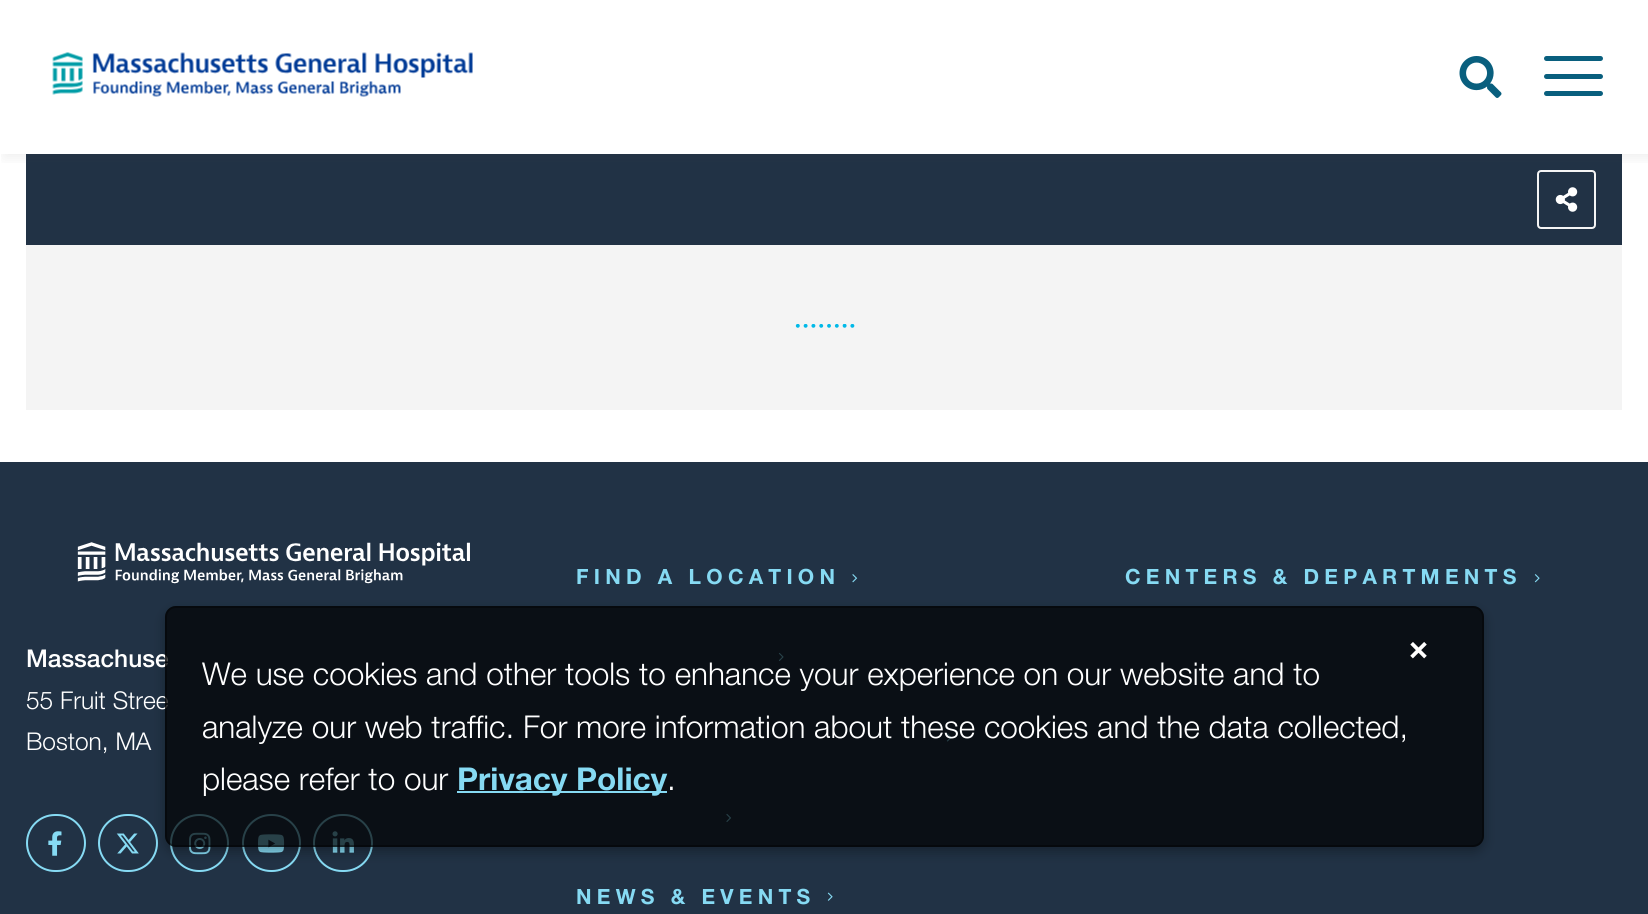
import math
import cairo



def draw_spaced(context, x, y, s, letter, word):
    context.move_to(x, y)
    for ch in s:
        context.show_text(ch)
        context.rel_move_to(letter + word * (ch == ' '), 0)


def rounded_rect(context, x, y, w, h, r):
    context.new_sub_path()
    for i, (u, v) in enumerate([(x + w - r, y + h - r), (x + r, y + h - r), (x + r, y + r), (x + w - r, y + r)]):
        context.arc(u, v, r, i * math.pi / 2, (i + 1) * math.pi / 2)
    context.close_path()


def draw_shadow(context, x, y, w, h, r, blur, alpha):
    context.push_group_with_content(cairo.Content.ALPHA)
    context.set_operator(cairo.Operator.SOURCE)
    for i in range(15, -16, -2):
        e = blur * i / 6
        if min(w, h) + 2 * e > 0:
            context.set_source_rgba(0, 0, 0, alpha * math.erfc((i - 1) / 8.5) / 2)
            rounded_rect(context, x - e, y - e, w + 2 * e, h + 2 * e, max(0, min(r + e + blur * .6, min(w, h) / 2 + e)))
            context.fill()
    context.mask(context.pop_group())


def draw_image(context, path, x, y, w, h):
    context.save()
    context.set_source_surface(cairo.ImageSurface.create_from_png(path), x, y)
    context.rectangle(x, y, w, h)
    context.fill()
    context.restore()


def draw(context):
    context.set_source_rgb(1, 1, 1)
    context.paint()
    context.set_source_rgb(33 / 255, 50 / 255, 69 / 255)
    context.rectangle(26, 154, 1596, 91)
    context.fill()
    rounded_rect(context, 1538, 171, 57, 57, 3)
    context.set_source_rgb(244 / 255, 244 / 255, 244 / 255)
    context.stroke()
    context.save()
    context.rectangle(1, 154, 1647, 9)
    context.clip()
    context.set_source_rgb(64 / 255, 64 / 255, 64 / 255)
    draw_shadow(context, 4, 4, 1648, 154, 0, 7, 0.09)
    context.restore()
    draw_image(context, "images/1.png", 52, 52, 421, 45)
    draw_image(context, "images/2.png", 1459, 56, 43, 42)
    context.set_source_rgb(9 / 255, 95 / 255, 126 / 255)
    rounded_rect(context, 1544, 56, 59, 5, 2.5)
    context.fill()
    rounded_rect(context, 1544, 74, 59, 5, 2.5)
    context.fill()
    rounded_rect(context, 1544, 91, 59, 5, 2.5)
    context.fill()
    draw_image(context, "images/3.png", 1555, 187, 23, 25)
    context.set_source_rgb(244 / 255, 244 / 255, 244 / 255)
    context.rectangle(26, 245, 1596, 165)
    context.fill()
    draw_image(context, "images/4.png", 795, 324, 60, 4)
    context.set_source_rgb(33 / 255, 50 / 255, 69 / 255)
    context.rectangle(0, 462, 1648, 452)
    context.fill()
    draw_image(context, "images/5.png", 852, 574, 6, 9)
    draw_image(context, "images/6.png", 778, 652, 6, 9)
    draw_image(context, "images/7.png", 946, 733, 6, 9)
    draw_image(context, "images/8.png", 726, 813, 6, 9)
    draw_image(context, "images/9.png", 827, 892, 6, 9)
    draw_image(context, "images/10.png", 1534, 574, 6, 9)
    draw_image(context, "images/11.png", 77, 542, 393, 42)
    rounded_rect(context, 27, 815, 58, 56, 28)
    context.set_source_rgb(134 / 255, 218 / 255, 243 / 255)
    context.stroke()
    draw_image(context, "images/12.png", 48, 831, 14, 25)
    rounded_rect(context, 99, 815, 58, 56, 28)
    context.stroke()
    draw_image(context, "images/13.png", 116, 833, 23, 21)
    rounded_rect(context, 171, 815, 57, 56, 28)
    context.stroke()
    draw_image(context, "images/14.png", 189, 832, 22, 23)
    rounded_rect(context, 243, 815, 57, 56, 28)
    context.stroke()
    draw_image(context, "images/15.png", 257, 834, 28, 19)
    rounded_rect(context, 314, 815, 58, 56, 28)
    context.stroke()
    draw_image(context, "images/16.png", 332, 831, 22, 22)
    context.save()
    context.set_fill_rule(cairo.FillRule.EVEN_ODD)
    context.new_path()
    context.move_to(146, 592)
    context.line_to(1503, 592)
    context.line_to(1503, 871)
    context.line_to(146, 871)
    context.close_path()
    context.move_to(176, 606)
    context.line_to(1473, 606)
    context.curve_to(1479, 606, 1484, 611, 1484, 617)
    context.line_to(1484, 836)
    context.curve_to(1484, 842, 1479, 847, 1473, 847)
    context.line_to(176, 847)
    context.curve_to(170, 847, 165, 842, 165, 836)
    context.line_to(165, 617)
    context.curve_to(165, 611, 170, 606, 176, 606)
    context.close_path()
    context.clip()
    context.set_source_rgb(0, 0, 0)
    draw_shadow(context, 165, 611, 1319, 241, 11, 6, 0.3)
    context.restore()
    context.select_font_face("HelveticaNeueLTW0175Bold", cairo.FontSlant.NORMAL, cairo.FontWeight.BOLD)
    context.set_font_size(21)
    draw_spaced(context, 576, 584, "FIND A LOCATION", 5.25, 0)
    draw_spaced(context, 576, 904, "NEWS & EVENTS", 5.25, 0)
    draw_spaced(context, 1125, 584, "CENTERS & DEPARTMENTS", 5.25, 0)
    context.select_font_face("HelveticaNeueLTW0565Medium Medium")
    context.set_font_size(24.5)
    context.set_source_rgb(1, 1, 1)
    context.move_to(26, 667)
    context.show_text("Massachuse")
    context.select_font_face("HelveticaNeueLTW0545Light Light")
    context.move_to(26, 709)
    context.show_text("55 Fruit Stree")
    context.move_to(26, 750)
    context.show_text("Boston, MA")
    context.set_source_rgba(0, 0, 0, 0.7)
    rounded_rect(context, 165, 606, 1319, 241, 11)
    context.fill()
    rounded_rect(context, 166, 607, 1317, 239, 10)
    context.set_source_rgba(0, 0, 0, 0.4)
    context.stroke()
    context.select_font_face("HelveticaNeueLTW0175Bold", cairo.FontSlant.NORMAL, cairo.FontWeight.BOLD)
    context.set_font_size(35)
    context.set_source_rgb(1, 1, 1)
    context.move_to(1408, 659)
    context.show_text("×")
    context.select_font_face("HelveticaNeueLTW0545Light Light")
    context.set_font_size(31.5)
    context.move_to(202, 685)
    context.show_text("We use cookies and other tools to enhance your experience on our website and to")
    context.move_to(202, 738)
    context.show_text("analyze our web traffic. For more information about these cookies and the data collected,")
    context.move_to(202, 790)
    context.show_text("please refer to our")
    context.set_source_rgb(134 / 255, 218 / 255, 243 / 255)
    context.rectangle(457, 791, 210, 2)
    context.fill()
    context.select_font_face("HelveticaNeueLTW0175Bold", cairo.FontSlant.NORMAL, cairo.FontWeight.BOLD)
    context.move_to(457, 790)
    context.show_text("Privacy Policy")
    context.select_font_face("HelveticaNeueLTW0545Light Light")
    context.set_source_rgb(1, 1, 1)
    context.move_to(667, 790)
    context.show_text(".")


surface = cairo.ImageSurface(cairo.Format.RGB24, 1648, 914)
context = cairo.Context(surface)
options = cairo.FontOptions()
options.set_hint_metrics(cairo.HintMetrics.OFF)
options.set_hint_style(cairo.HintStyle.NONE)
context.set_font_options(options)
context.set_miter_limit(4)
draw(context)
surface.write_to_png("out.png")
